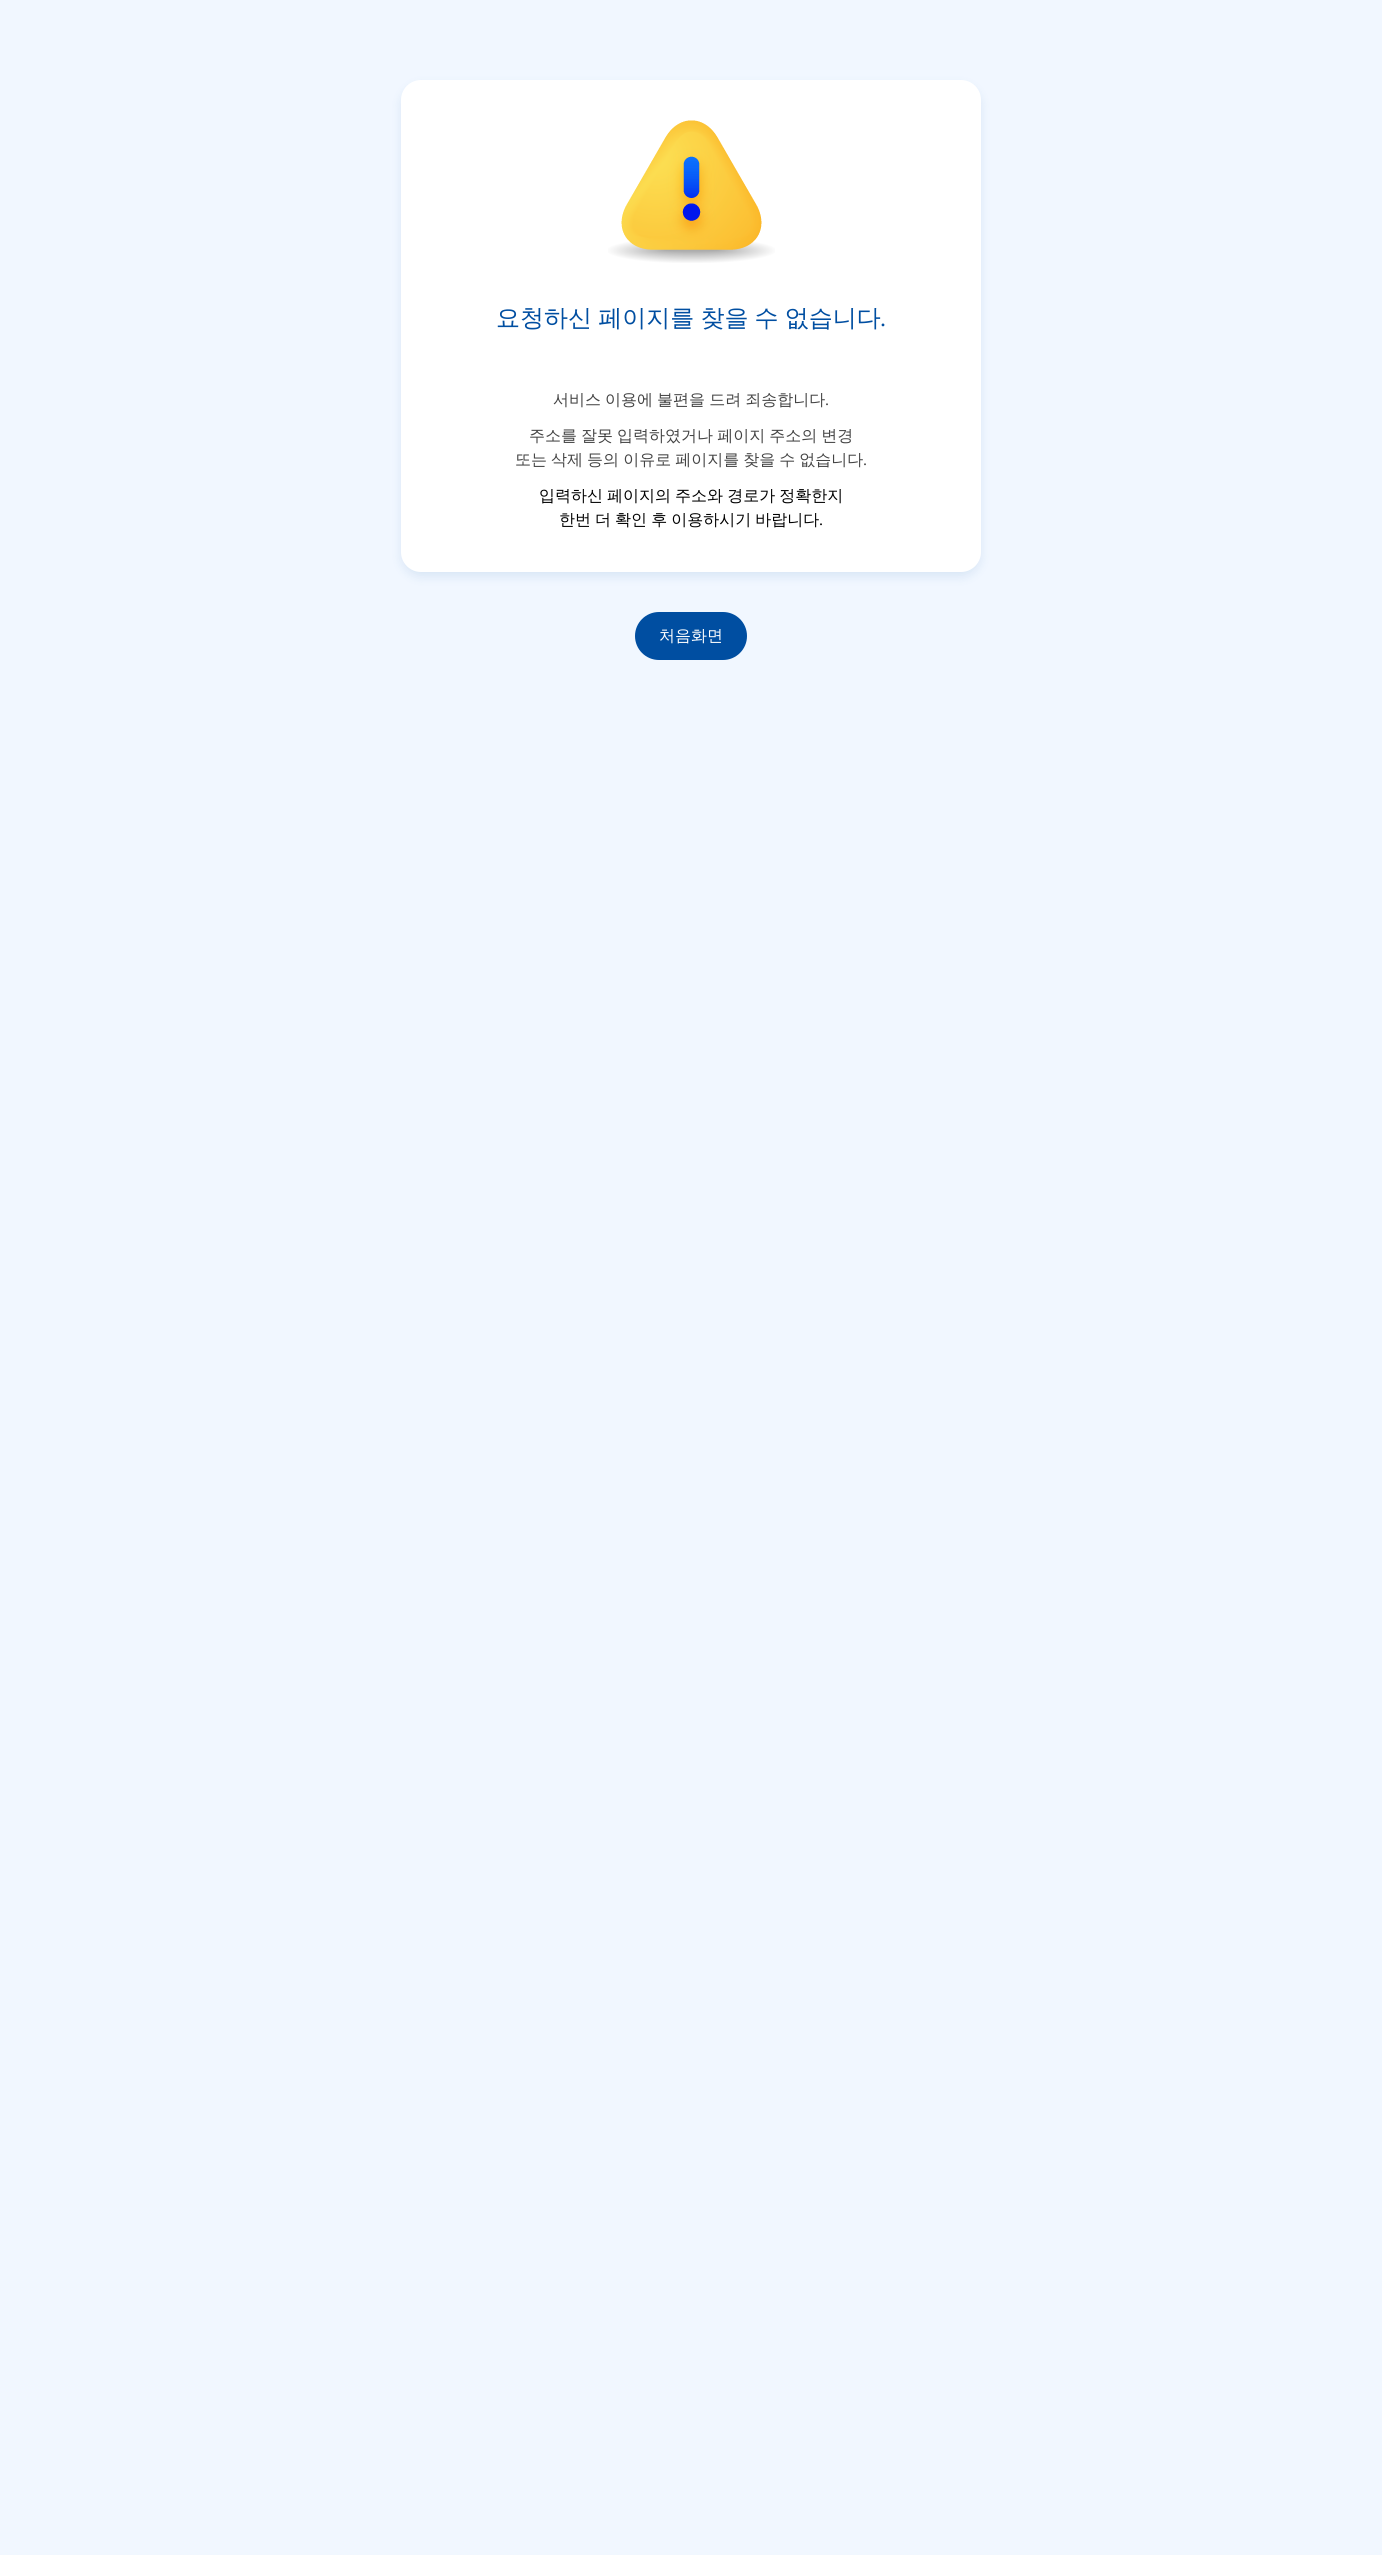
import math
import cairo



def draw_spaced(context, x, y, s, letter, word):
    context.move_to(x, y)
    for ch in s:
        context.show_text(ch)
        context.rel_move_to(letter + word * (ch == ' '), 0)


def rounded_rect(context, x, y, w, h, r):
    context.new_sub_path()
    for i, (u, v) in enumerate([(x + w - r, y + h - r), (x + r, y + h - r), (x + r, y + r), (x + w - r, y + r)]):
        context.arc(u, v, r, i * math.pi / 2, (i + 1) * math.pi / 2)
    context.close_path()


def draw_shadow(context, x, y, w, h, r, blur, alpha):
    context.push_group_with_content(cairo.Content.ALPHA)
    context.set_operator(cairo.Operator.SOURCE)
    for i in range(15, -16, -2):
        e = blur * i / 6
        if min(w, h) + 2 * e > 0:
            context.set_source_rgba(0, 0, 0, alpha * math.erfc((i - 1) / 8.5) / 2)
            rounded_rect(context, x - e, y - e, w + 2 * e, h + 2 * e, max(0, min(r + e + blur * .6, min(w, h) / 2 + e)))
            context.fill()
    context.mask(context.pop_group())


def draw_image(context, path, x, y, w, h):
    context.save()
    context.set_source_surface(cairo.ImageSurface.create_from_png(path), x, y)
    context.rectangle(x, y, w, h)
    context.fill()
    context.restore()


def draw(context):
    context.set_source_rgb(241 / 255, 247 / 255, 1)
    context.paint()
    context.set_source_rgb(0, 78 / 255, 161 / 255)
    draw_shadow(context, 401, 85, 580, 492, 20, 5, 0.1)
    context.set_source_rgb(1, 1, 1)
    rounded_rect(context, 401, 80, 580, 492, 20)
    context.fill()
    draw_image(context, "images/1.png", 608, 120, 167, 143)
    context.set_source_rgb(0, 78 / 255, 161 / 255)
    rounded_rect(context, 635, 612, 112, 48, 24)
    context.fill()
    context.select_font_face("WenQuanYi Zen Hei Medium")
    context.set_font_size(24)
    draw_spaced(context, 496, 326, "요청하신 페이지를 찾을 수 없습니다", 0, -1)
    context.select_font_face("Liberation Serif")
    context.move_to(880, 326)
    context.show_text(".")
    context.select_font_face("WenQuanYi Zen Hei Medium")
    context.set_font_size(16)
    context.set_source_rgb(68 / 255, 68 / 255, 68 / 255)
    draw_spaced(context, 553, 405, "서비스 이용에 불편을 드려 죄송합니다", 0, -0.75)
    context.select_font_face("Liberation Serif")
    context.move_to(825, 405)
    context.show_text(".")
    context.select_font_face("WenQuanYi Zen Hei Medium")
    draw_spaced(context, 529, 441, "주소를 잘못 입력하였거나 페이지 주소의 변경", 0, -0.75)
    draw_spaced(context, 515, 465, "또는 삭제 등의 이유로 페이지를 찾을 수 없습니다", 0, -0.75)
    context.select_font_face("Liberation Serif")
    context.move_to(863, 465)
    context.show_text(".")
    context.select_font_face("WenQuanYi Zen Hei Medium")
    context.set_source_rgb(0, 0, 0)
    draw_spaced(context, 539, 501, "입력하신 페이지의 주소와 경로가 정확한지", 0, -0.75)
    draw_spaced(context, 559, 525, "한번 더 확인 후 이용하시기 바랍니다", 0, -0.75)
    context.select_font_face("Liberation Serif")
    context.move_to(819, 525)
    context.show_text(".")
    context.select_font_face("WenQuanYi Zen Hei Medium")
    context.set_source_rgb(1, 1, 1)
    context.move_to(659, 641)
    context.show_text("처음화면")


surface = cairo.ImageSurface(cairo.Format.RGB24, 1382, 2555)
context = cairo.Context(surface)
options = cairo.FontOptions()
options.set_hint_metrics(cairo.HintMetrics.OFF)
options.set_hint_style(cairo.HintStyle.NONE)
context.set_font_options(options)
context.set_miter_limit(4)
draw(context)
surface.write_to_png("out.png")
